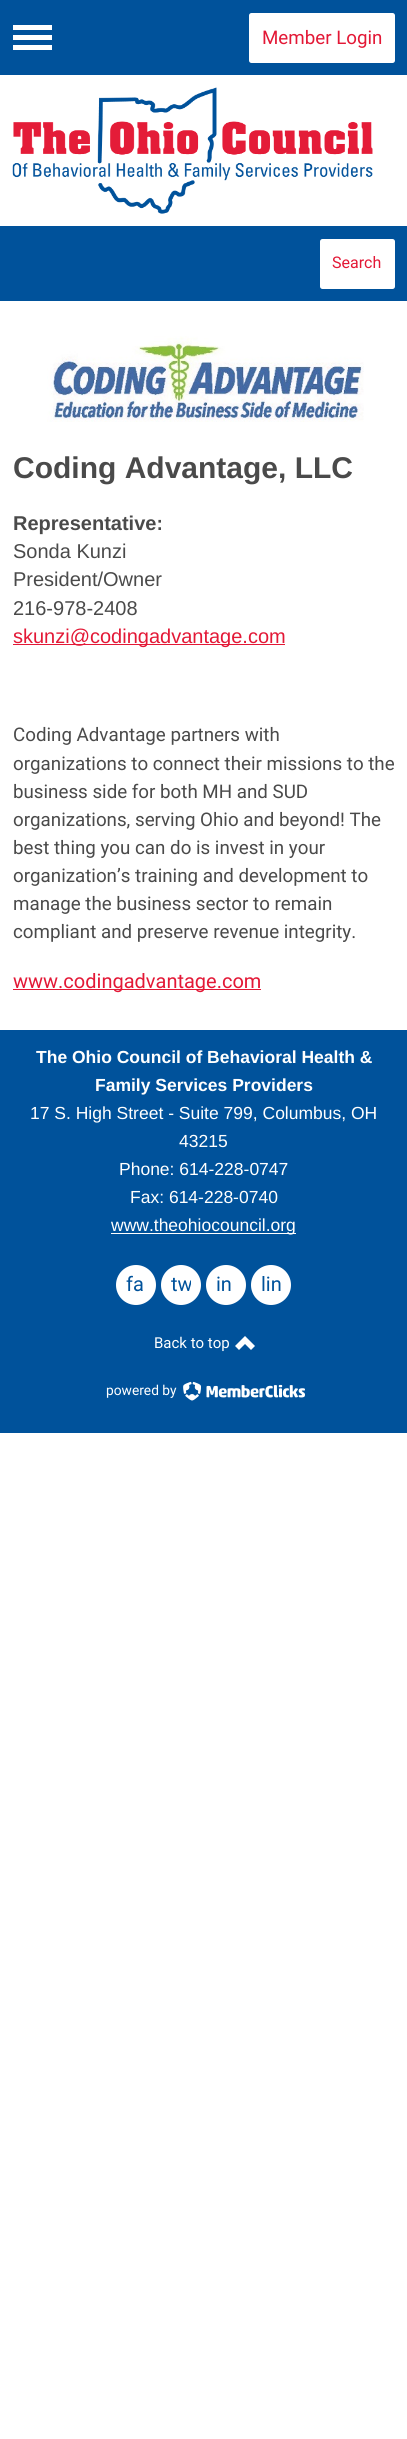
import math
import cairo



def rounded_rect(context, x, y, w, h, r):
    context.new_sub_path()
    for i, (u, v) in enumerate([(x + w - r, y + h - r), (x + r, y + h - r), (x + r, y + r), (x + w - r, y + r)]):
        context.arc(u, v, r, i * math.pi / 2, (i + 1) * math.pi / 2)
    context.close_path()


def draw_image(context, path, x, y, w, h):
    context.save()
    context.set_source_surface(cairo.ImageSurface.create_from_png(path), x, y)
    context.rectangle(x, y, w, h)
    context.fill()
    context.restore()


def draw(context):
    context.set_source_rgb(1, 1, 1)
    context.paint()
    context.set_source_rgb(0, 82 / 255, 155 / 255)
    context.rectangle(0, 0, 407, 75)
    context.fill()
    context.set_source_rgb(1, 1, 1)
    context.set_fill_rule(cairo.FillRule.EVEN_ODD)
    context.new_path()
    context.move_to(13, 30)
    context.line_to(13, 25)
    context.line_to(52, 25)
    context.line_to(52, 30)
    context.close_path()
    context.move_to(13, 40)
    context.line_to(13, 35)
    context.line_to(52, 35)
    context.line_to(52, 40)
    context.close_path()
    context.move_to(13, 50)
    context.line_to(13, 45)
    context.line_to(52, 45)
    context.line_to(52, 50)
    context.close_path()
    context.fill()
    rounded_rect(context, 249, 13, 146, 50, 2.5)
    context.fill()
    draw_image(context, "images/1.png", 12, 87, 361, 127)
    context.set_source_rgb(0, 82 / 255, 155 / 255)
    context.rectangle(0, 226, 407, 75)
    context.fill()
    context.set_source_rgb(1, 1, 1)
    rounded_rect(context, 320, 239, 75, 50, 2.5)
    context.fill()
    draw_image(context, "images/2.png", 47, 336, 317, 86)
    context.set_source_rgb(227 / 255, 24 / 255, 54 / 255)
    context.rectangle(13, 644, 272, 1)
    context.fill()
    context.rectangle(13, 989, 248, 1)
    context.fill()
    context.set_source_rgb(0, 82 / 255, 155 / 255)
    context.rectangle(0, 1030, 407, 403)
    context.fill()
    context.set_source_rgb(1, 1, 1)
    context.rectangle(111, 1233, 185, 1)
    context.fill()
    context.arc(136, 1285, 20, 0, 2 * math.pi)
    context.fill()
    context.arc(181, 1285, 20, 0, 2 * math.pi)
    context.fill()
    context.arc(226, 1285, 20, 0, 2 * math.pi)
    context.fill()
    context.arc(271, 1285, 20, 0, 2 * math.pi)
    context.fill()
    context.set_fill_rule(cairo.FillRule.WINDING)
    context.new_path()
    context.move_to(235, 1346)
    context.line_to(239, 1350)
    context.line_to(245, 1344)
    context.line_to(251, 1350)
    context.line_to(255, 1346)
    context.line_to(245, 1336)
    context.close_path()
    context.fill()
    draw_image(context, "images/3.png", 183, 1381, 18, 20)
    draw_image(context, "images/4.png", 206, 1384, 99, 14)
    context.select_font_face("Roboto")
    context.set_font_size(18.75)
    context.set_source_rgb(227 / 255, 24 / 255, 54 / 255)
    context.move_to(262, 44)
    context.show_text("Member Login")
    context.set_font_size(16)
    context.move_to(332, 268)
    context.show_text("Search")
    context.select_font_face("Liberation Sans", cairo.FontSlant.NORMAL, cairo.FontWeight.BOLD)
    context.set_font_size(30)
    context.set_source_rgb(74 / 255, 74 / 255, 74 / 255)
    context.move_to(13, 478)
    context.show_text("Coding Advantage, LLC")
    context.set_font_size(20)
    context.move_to(13, 530)
    context.show_text("Representative:")
    context.select_font_face("Liberation Sans")
    context.move_to(13, 558)
    context.show_text("Sonda Kunzi")
    context.move_to(13, 586)
    context.show_text("President/Owner")
    context.move_to(13, 615)
    context.show_text("216-978-2408")
    context.set_source_rgb(227 / 255, 24 / 255, 54 / 255)
    context.move_to(13, 643)
    context.show_text("skunzi@codingadvantage.com")
    context.select_font_face("Roboto")
    context.set_font_size(18.75)
    context.set_source_rgb(74 / 255, 74 / 255, 74 / 255)
    context.move_to(13, 741)
    context.show_text("Coding Advantage partners with")
    context.move_to(13, 770)
    context.show_text("organizations to connect their missions to the")
    context.move_to(13, 798)
    context.show_text("business side for both MH and SUD")
    context.move_to(13, 826)
    context.show_text("organizations, serving Ohio and beyond! The")
    context.move_to(13, 854)
    context.show_text("best thing you can do is invest in your")
    context.move_to(13, 882)
    context.show_text("organization’s training and development to")
    context.move_to(13, 910)
    context.show_text("manage the business sector to remain")
    context.move_to(13, 938)
    context.show_text("compliant and preserve revenue integrity.")
    context.set_font_size(20)
    context.set_source_rgb(227 / 255, 24 / 255, 54 / 255)
    context.move_to(13, 988)
    context.show_text("www.codingadvantage.com")
    context.select_font_face("Liberation Sans", cairo.FontSlant.NORMAL, cairo.FontWeight.BOLD)
    context.set_font_size(17.5)
    context.set_source_rgb(1, 1, 1)
    context.move_to(36, 1063)
    context.show_text("The Ohio Council of Behavioral Health &")
    context.move_to(95, 1091)
    context.show_text("Family Services Providers")
    context.select_font_face("Liberation Sans")
    context.move_to(30, 1119)
    context.show_text("17 S. High Street - Suite 799, Columbus, OH")
    context.move_to(179, 1147)
    context.show_text("43215")
    context.move_to(119, 1175)
    context.show_text("Phone: 614-228-0747")
    context.move_to(130, 1203)
    context.show_text("Fax: 614-228-0740")
    context.move_to(111, 1231)
    context.show_text("www.theohiocouncil.org")
    context.select_font_face("Roboto")
    context.set_font_size(20)
    context.set_source_rgb(0, 82 / 255, 155 / 255)
    context.move_to(126, 1291)
    context.show_text("fa")
    context.save()
    context.rectangle(171, 1275, 20, 20)
    context.clip()
    context.move_to(171, 1291)
    context.show_text("tw")
    context.restore()
    context.move_to(216, 1291)
    context.show_text("in")
    context.move_to(261, 1291)
    context.show_text("lin")
    context.set_font_size(15)
    context.set_source_rgb(1, 1, 1)
    context.move_to(154, 1348)
    context.show_text("Back to top")
    context.set_font_size(13.75)
    context.move_to(106, 1395)
    context.show_text("powered by")


surface = cairo.ImageSurface(cairo.Format.RGB24, 407, 2439)
context = cairo.Context(surface)
options = cairo.FontOptions()
options.set_hint_metrics(cairo.HintMetrics.OFF)
options.set_hint_style(cairo.HintStyle.NONE)
context.set_font_options(options)
context.set_miter_limit(4)
draw(context)
surface.write_to_png("out.png")
